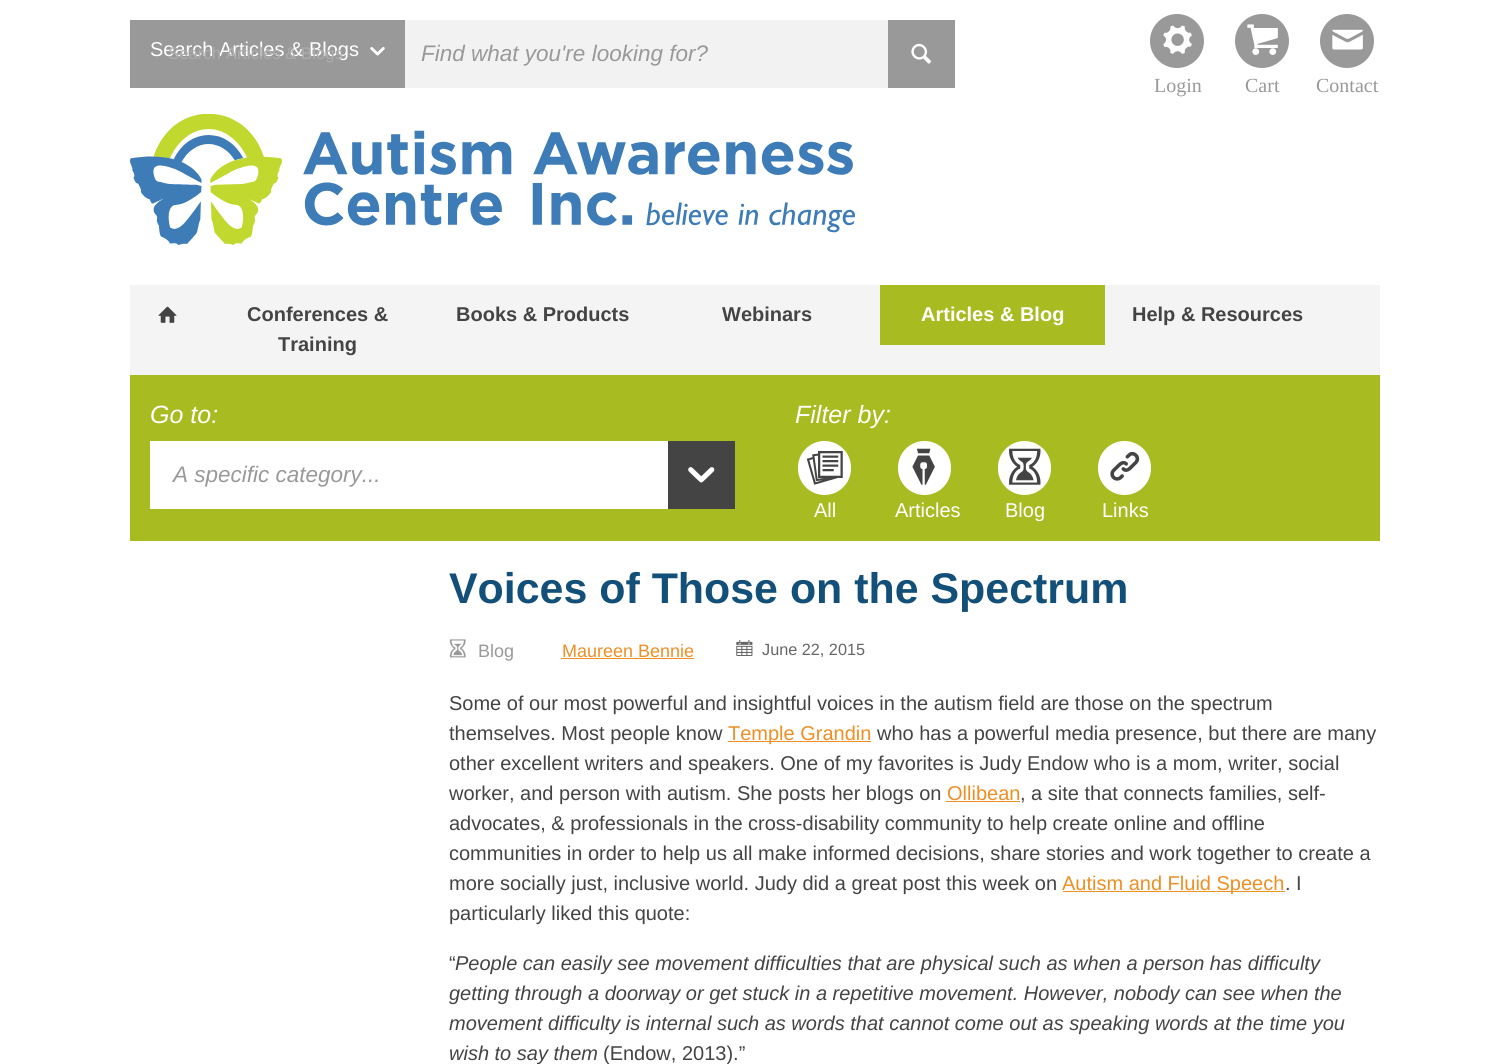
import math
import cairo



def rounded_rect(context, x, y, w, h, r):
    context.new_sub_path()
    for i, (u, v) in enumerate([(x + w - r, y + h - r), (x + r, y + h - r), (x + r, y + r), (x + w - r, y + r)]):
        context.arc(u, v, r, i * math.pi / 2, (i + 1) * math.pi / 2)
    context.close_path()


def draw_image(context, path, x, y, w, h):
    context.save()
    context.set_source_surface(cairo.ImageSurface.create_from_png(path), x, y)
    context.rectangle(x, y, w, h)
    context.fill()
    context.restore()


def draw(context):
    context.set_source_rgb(1, 1, 1)
    context.paint()
    context.set_source_rgb(153 / 255, 153 / 255, 153 / 255)
    context.rectangle(130, 20, 275, 68)
    context.fill()
    draw_image(context, "images/1.png", 370, 47, 15, 9)
    context.set_source_rgb(242 / 255, 242 / 255, 242 / 255)
    context.rectangle(405, 20, 483, 68)
    context.fill()
    context.set_source_rgb(153 / 255, 153 / 255, 153 / 255)
    context.rectangle(888, 20, 67, 68)
    context.fill()
    draw_image(context, "images/2.png", 911, 43, 21, 21)
    context.arc(1177, 41, 27, 0, 2 * math.pi)
    context.fill()
    draw_image(context, "images/3.png", 1163, 25, 29, 29)
    context.arc(1262, 41, 27, 0, 2 * math.pi)
    context.fill()
    draw_image(context, "images/4.png", 1247, 24, 31, 31)
    context.arc(1347, 41, 27, 0, 2 * math.pi)
    context.fill()
    draw_image(context, "images/5.png", 1332, 29, 31, 21)
    draw_image(context, "images/6.png", 130, 114, 725, 131)
    context.set_source_rgb(244 / 255, 244 / 255, 244 / 255)
    context.rectangle(130, 285, 1250, 90)
    context.fill()
    draw_image(context, "images/7.png", 158, 306, 19, 17)
    context.set_source_rgb(168 / 255, 187 / 255, 33 / 255)
    context.rectangle(880, 285, 225, 60)
    context.fill()
    context.rectangle(130, 375, 1250, 166)
    context.fill()
    context.set_source_rgb(1, 1, 1)
    context.rectangle(150, 441, 518, 68)
    context.fill()
    context.set_source_rgb(68 / 255, 68 / 255, 68 / 255)
    context.rectangle(668, 441, 67, 68)
    context.fill()
    draw_image(context, "images/8.png", 688, 467, 27, 16)
    context.set_source_rgb(1, 1, 1)
    rounded_rect(context, 798, 441, 53, 54, 26.5)
    context.fill()
    draw_image(context, "images/9.png", 806, 451, 37, 34)
    rounded_rect(context, 898, 441, 53, 54, 26.5)
    context.fill()
    draw_image(context, "images/10.png", 912, 448, 23, 37)
    rounded_rect(context, 998, 441, 53, 54, 26.5)
    context.fill()
    draw_image(context, "images/11.png", 1009, 448, 32, 37)
    rounded_rect(context, 1098, 441, 53, 54, 26.5)
    context.fill()
    draw_image(context, "images/12.png", 1110, 451, 30, 30)
    draw_image(context, "images/13.png", 449, 639, 17, 19)
    context.set_source_rgb(238 / 255, 143 / 255, 37 / 255)
    context.rectangle(561, 658, 133, 1)
    context.fill()
    draw_image(context, "images/14.png", 736, 639, 17, 17)
    context.rectangle(728, 741, 143, 1)
    context.fill()
    context.rectangle(946, 801, 74, 1)
    context.fill()
    context.rectangle(1063, 891, 222, 1)
    context.fill()
    context.select_font_face("Liberation Sans")
    context.set_font_size(20)
    context.set_source_rgb(1, 1, 1)
    context.move_to(150, 56)
    context.show_text("Search Articles & Blogs")
    context.set_font_size(16.75)
    context.set_source_rgb(173 / 255, 173 / 255, 173 / 255)
    context.move_to(168, 59)
    context.show_text("Search Articles & Blogs")
    context.select_font_face("Liberation Sans", cairo.FontSlant.ITALIC)
    context.set_font_size(22.5)
    context.set_source_rgb(153 / 255, 153 / 255, 153 / 255)
    context.move_to(421, 61)
    context.show_text("Find what you're looking for?")
    context.select_font_face("Liberation Serif")
    context.set_font_size(20)
    context.move_to(1154, 92)
    context.show_text("Login")
    context.move_to(1245, 92)
    context.show_text("Cart")
    context.move_to(1316, 92)
    context.show_text("Contact")
    context.select_font_face("Liberation Sans", cairo.FontSlant.NORMAL, cairo.FontWeight.BOLD)
    context.set_source_rgb(68 / 255, 68 / 255, 68 / 255)
    context.move_to(247, 321)
    context.show_text("Conferences &")
    context.move_to(278, 351)
    context.show_text("Training")
    context.move_to(456, 321)
    context.show_text("Books & Products")
    context.move_to(722, 321)
    context.show_text("Webinars")
    context.set_source_rgb(1, 1, 1)
    context.move_to(921, 321)
    context.show_text("Articles & Blog")
    context.set_source_rgb(68 / 255, 68 / 255, 68 / 255)
    context.move_to(1132, 321)
    context.show_text("Help & Resources")
    context.select_font_face("Liberation Sans", cairo.FontSlant.ITALIC)
    context.set_font_size(25)
    context.set_source_rgb(1, 1, 1)
    context.move_to(150, 423)
    context.show_text("Go to:")
    context.set_font_size(22.5)
    context.set_source_rgb(153 / 255, 153 / 255, 153 / 255)
    context.move_to(173, 482)
    context.show_text("A specific category...")
    context.set_font_size(25)
    context.set_source_rgb(1, 1, 1)
    context.move_to(795, 423)
    context.show_text("Filter by:")
    context.select_font_face("Liberation Sans")
    context.set_font_size(20)
    context.move_to(814, 517)
    context.show_text("All")
    context.move_to(895, 517)
    context.show_text("Articles")
    context.move_to(1005, 517)
    context.show_text("Blog")
    context.move_to(1102, 517)
    context.show_text("Links")
    context.select_font_face("Liberation Sans", cairo.FontSlant.NORMAL, cairo.FontWeight.BOLD)
    context.set_font_size(42.9)
    context.set_source_rgb(19 / 255, 80 / 255, 121 / 255)
    context.move_to(449, 603)
    context.show_text("Voices of Those on the Spectrum")
    context.select_font_face("Liberation Sans")
    context.set_font_size(18)
    context.set_source_rgb(153 / 255, 153 / 255, 153 / 255)
    context.move_to(478, 657)
    context.show_text("Blog")
    context.set_source_rgb(238 / 255, 143 / 255, 37 / 255)
    context.move_to(562, 657)
    context.show_text("Maureen Bennie")
    context.set_font_size(16.25)
    context.set_source_rgb(102 / 255, 102 / 255, 102 / 255)
    context.move_to(762, 655)
    context.show_text("June 22, 2015")
    context.set_font_size(20)
    context.set_source_rgb(68 / 255, 68 / 255, 68 / 255)
    context.move_to(449, 710)
    context.show_text("Some of our most powerful and insightful voices in the autism field are those on the spectrum")
    context.move_to(449, 740)
    context.show_text("themselves. Most people know")
    context.set_source_rgb(238 / 255, 143 / 255, 37 / 255)
    context.move_to(728, 740)
    context.show_text("Temple Grandin")
    context.set_source_rgb(68 / 255, 68 / 255, 68 / 255)
    context.move_to(877, 740)
    context.show_text("who has a powerful media presence, but there are many")
    context.move_to(449, 770)
    context.show_text("other excellent writers and speakers. One of my favorites is Judy Endow who is a mom, writer, social")
    context.move_to(449, 800)
    context.show_text("worker, and person with autism. She posts her blogs on")
    context.set_source_rgb(238 / 255, 143 / 255, 37 / 255)
    context.move_to(947, 800)
    context.show_text("Ollibean")
    context.set_source_rgb(68 / 255, 68 / 255, 68 / 255)
    context.move_to(1020, 800)
    context.show_text(", a site that connects families, self-")
    context.move_to(449, 830)
    context.show_text("advocates, & professionals in the cross-disability community to help create online and offline")
    context.move_to(449, 860)
    context.show_text("communities in order to help us all make informed decisions, share stories and work together to create a")
    context.move_to(449, 890)
    context.show_text("more socially just, inclusive world. Judy did a great post this week on")
    context.set_source_rgb(238 / 255, 143 / 255, 37 / 255)
    context.move_to(1062, 890)
    context.show_text("Autism and Fluid Speech")
    context.set_source_rgb(68 / 255, 68 / 255, 68 / 255)
    context.move_to(1285, 890)
    context.show_text(". I")
    context.move_to(449, 920)
    context.show_text("particularly liked this quote:")
    context.move_to(449, 970)
    context.show_text("“")
    context.select_font_face("Liberation Sans", cairo.FontSlant.ITALIC)
    context.move_to(455, 970)
    context.show_text("People can easily see movement difficulties that are physical such as when a person has difficulty")
    context.move_to(449, 1000)
    context.show_text("getting through a doorway or get stuck in a repetitive movement. However, nobody can see when the")
    context.move_to(449, 1030)
    context.show_text("movement difficulty is internal such as words that cannot come out as speaking words at the time you")
    context.move_to(449, 1060)
    context.show_text("wish to say them")
    context.select_font_face("Liberation Sans")
    context.move_to(603, 1060)
    context.show_text("(Endow, 2013).”")


surface = cairo.ImageSurface(cairo.Format.RGB24, 1510, 1064)
context = cairo.Context(surface)
options = cairo.FontOptions()
options.set_hint_metrics(cairo.HintMetrics.OFF)
options.set_hint_style(cairo.HintStyle.NONE)
context.set_font_options(options)
context.set_miter_limit(4)
draw(context)
surface.write_to_png("out.png")
